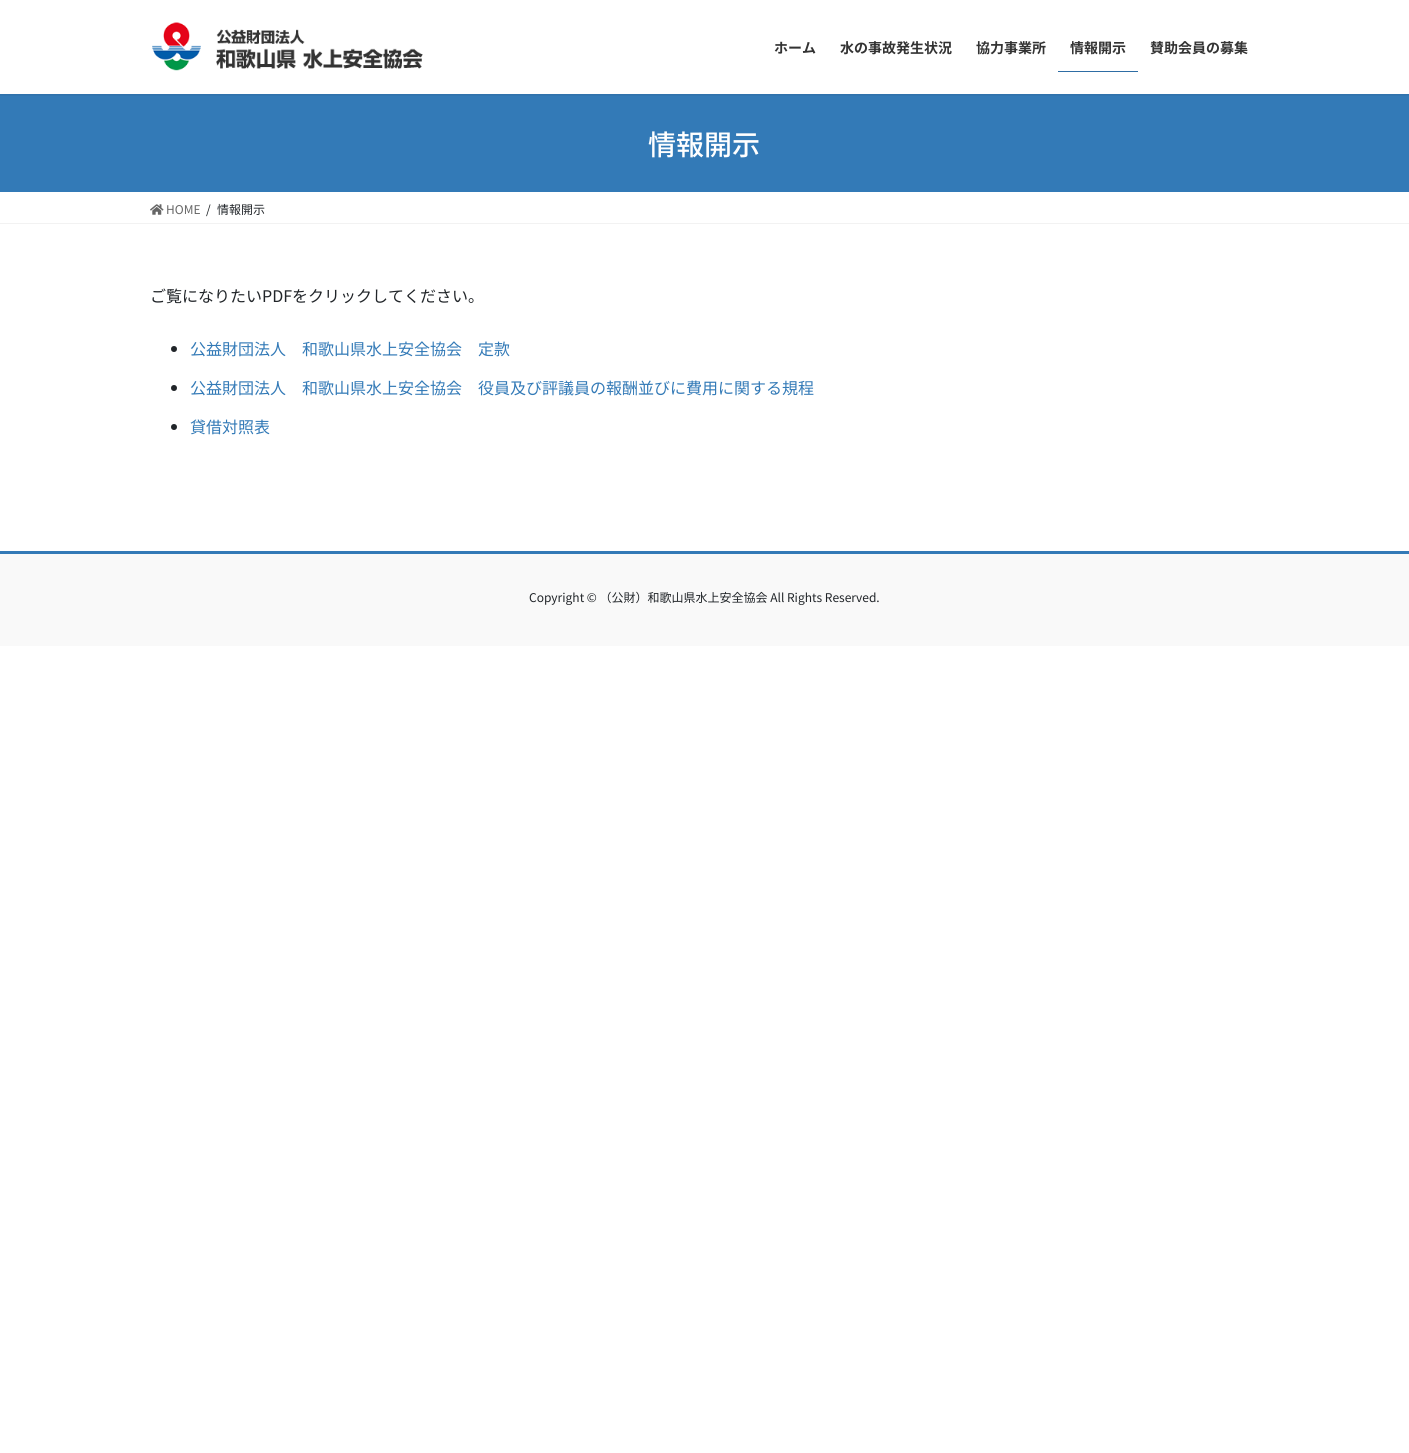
import math
import cairo



def rounded_rect(context, x, y, w, h, r):
    context.new_sub_path()
    for i, (u, v) in enumerate([(x + w - r, y + h - r), (x + r, y + h - r), (x + r, y + r), (x + w - r, y + r)]):
        context.arc(u, v, r, i * math.pi / 2, (i + 1) * math.pi / 2)
    context.close_path()


def draw_shadow(context, x, y, w, h, r, blur, alpha):
    context.push_group_with_content(cairo.Content.ALPHA)
    context.set_operator(cairo.Operator.SOURCE)
    for i in range(15, -16, -2):
        e = blur * i / 6
        if min(w, h) + 2 * e > 0:
            context.set_source_rgba(0, 0, 0, alpha * math.erfc((i - 1) / 8.5) / 2)
            rounded_rect(context, x - e, y - e, w + 2 * e, h + 2 * e, max(0, min(r + e + blur * .6, min(w, h) / 2 + e)))
            context.fill()
    context.mask(context.pop_group())


def draw_image(context, path, x, y, w, h):
    context.save()
    context.set_source_surface(cairo.ImageSurface.create_from_png(path), x, y)
    context.rectangle(x, y, w, h)
    context.fill()
    context.restore()


def draw(context):
    context.set_source_rgb(1, 1, 1)
    context.paint()
    context.set_source_rgb(51 / 255, 122 / 255, 183 / 255)
    context.rectangle(0, 94, 1409, 98)
    context.fill()
    context.save()
    context.rectangle(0, 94, 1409, 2)
    context.clip()
    context.set_source_rgb(0, 0, 0)
    draw_shadow(context, 0, 1, 1409, 94, 0, 1.5, 0.1)
    context.restore()
    draw_image(context, "images/1.png", 152, 22, 271, 49)
    context.set_source_rgb(46 / 255, 109 / 255, 164 / 255)
    context.rectangle(1058, 71, 80, 1)
    context.fill()
    context.set_source_rgb(242 / 255, 242 / 255, 242 / 255)
    context.rectangle(0, 223, 1409, 1)
    context.fill()
    draw_image(context, "images/2.png", 150, 204, 14, 11)
    context.set_source_rgb(33 / 255, 37 / 255, 41 / 255)
    context.arc(174, 349, 3, 0, 2 * math.pi)
    context.fill()
    context.arc(174, 388, 3, 0, 2 * math.pi)
    context.fill()
    context.arc(174, 427, 3, 0, 2 * math.pi)
    context.fill()
    context.set_source_rgb(249 / 255, 249 / 255, 249 / 255)
    context.rectangle(0, 554, 1409, 92)
    context.fill()
    context.set_source_rgb(51 / 255, 122 / 255, 183 / 255)
    context.rectangle(0, 551, 1409, 3)
    context.fill()
    context.select_font_face("Noto Sans JP", cairo.FontSlant.NORMAL, cairo.FontWeight.BOLD)
    context.set_font_size(14)
    context.set_source_rgb(51 / 255, 51 / 255, 51 / 255)
    context.move_to(774, 53)
    context.show_text("ホーム")
    context.move_to(840, 53)
    context.show_text("水の事故発生状況")
    context.move_to(976, 53)
    context.show_text("協力事業所")
    context.move_to(1070, 53)
    context.show_text("情報開示")
    context.move_to(1150, 53)
    context.show_text("賛助会員の募集")
    context.select_font_face("Noto Sans JP Medium")
    context.set_font_size(28)
    context.set_source_rgb(1, 1, 1)
    context.move_to(648, 155)
    context.show_text("情報開示")
    context.select_font_face("Noto Sans JP")
    context.set_font_size(12)
    context.set_source_rgb(102 / 255, 102 / 255, 102 / 255)
    context.move_to(166, 214)
    context.show_text("HOME")
    context.set_source_rgb(33 / 255, 37 / 255, 41 / 255)
    context.move_to(206, 214)
    context.show_text("/")
    context.move_to(217, 214)
    context.show_text("情報開示")
    context.set_font_size(16)
    context.move_to(150, 302)
    context.show_text("ご覧になりたいPDFをクリックしてください。")
    context.set_source_rgb(51 / 255, 122 / 255, 183 / 255)
    context.move_to(190, 355)
    context.show_text("公益財団法人　和歌山県水上安全協会　定款")
    context.move_to(190, 394)
    context.show_text("公益財団法人　和歌山県水上安全協会　役員及び評議員の報酬並びに費用に関する規程")
    context.move_to(190, 433)
    context.show_text("貸借対照表")
    context.set_font_size(12)
    context.set_source_rgb(33 / 255, 37 / 255, 41 / 255)
    context.move_to(529, 602)
    context.show_text("Copyright © （公財）和歌山県水上安全協会 All Rights Reserved.")


surface = cairo.ImageSurface(cairo.Format.RGB24, 1409, 1453)
context = cairo.Context(surface)
options = cairo.FontOptions()
options.set_hint_metrics(cairo.HintMetrics.OFF)
options.set_hint_style(cairo.HintStyle.NONE)
context.set_font_options(options)
context.set_miter_limit(4)
draw(context)
surface.write_to_png("out.png")
